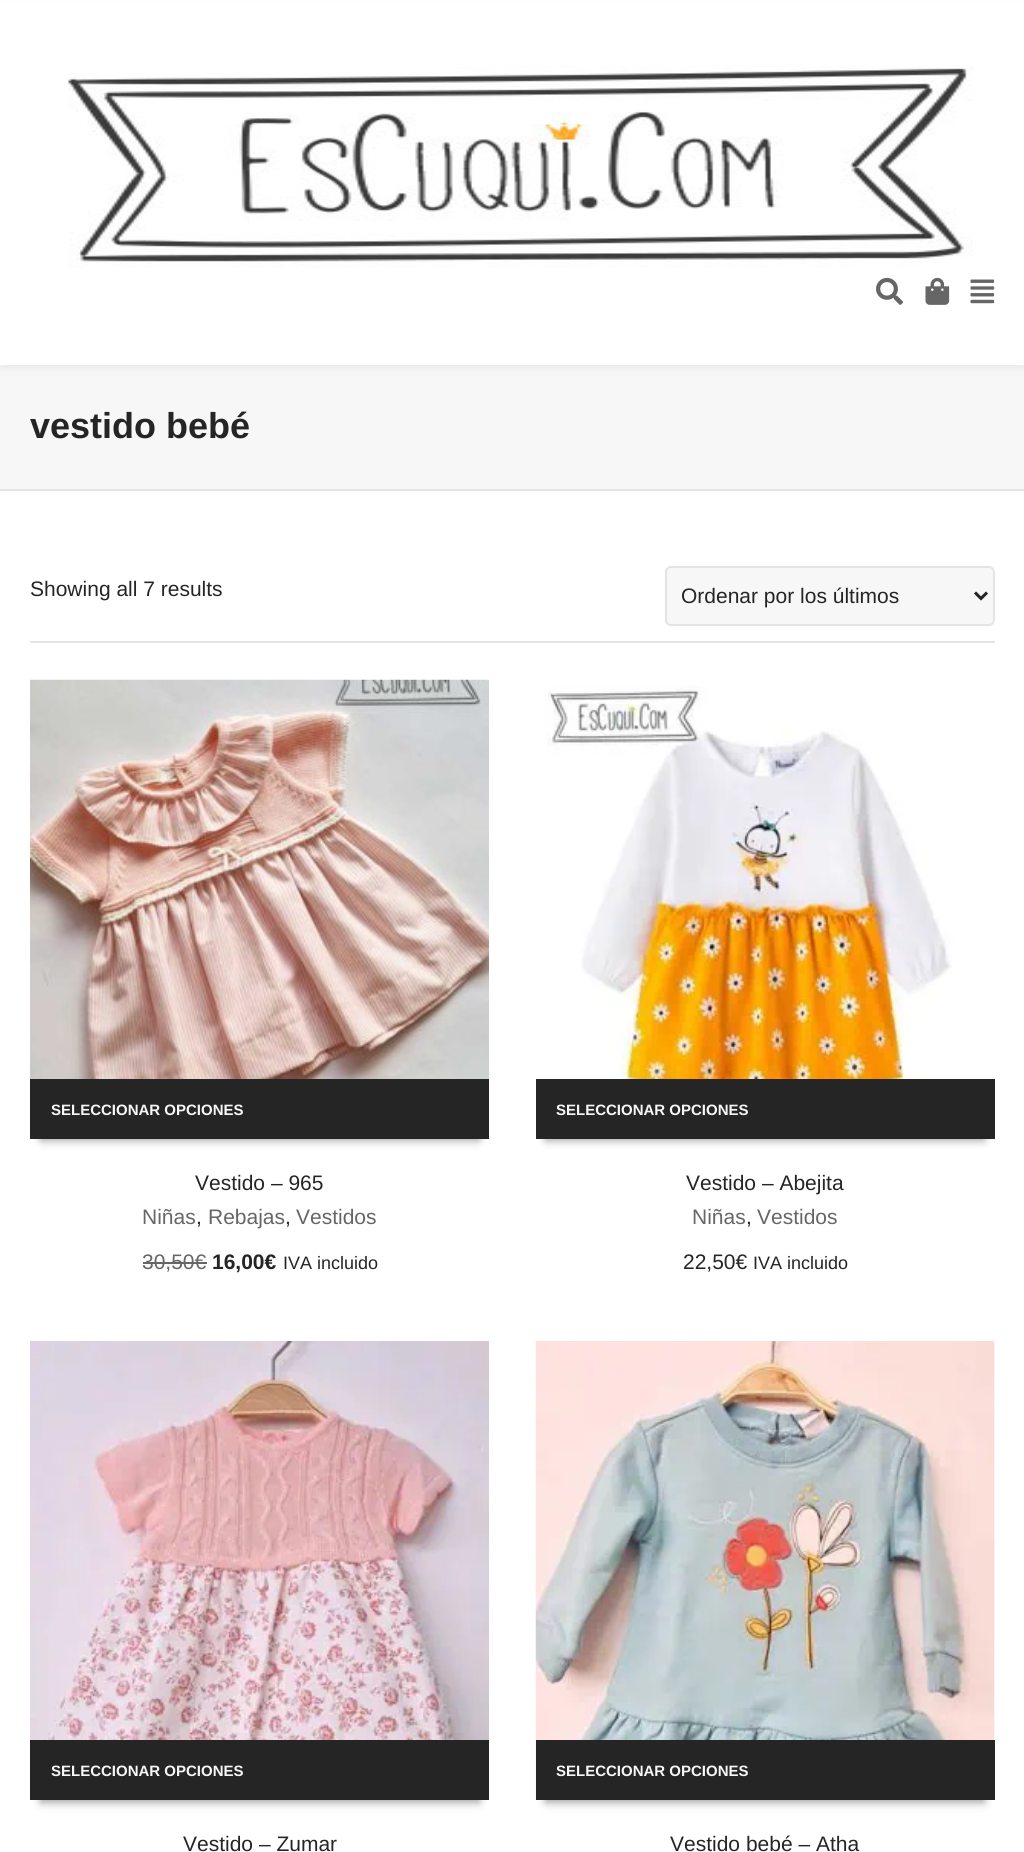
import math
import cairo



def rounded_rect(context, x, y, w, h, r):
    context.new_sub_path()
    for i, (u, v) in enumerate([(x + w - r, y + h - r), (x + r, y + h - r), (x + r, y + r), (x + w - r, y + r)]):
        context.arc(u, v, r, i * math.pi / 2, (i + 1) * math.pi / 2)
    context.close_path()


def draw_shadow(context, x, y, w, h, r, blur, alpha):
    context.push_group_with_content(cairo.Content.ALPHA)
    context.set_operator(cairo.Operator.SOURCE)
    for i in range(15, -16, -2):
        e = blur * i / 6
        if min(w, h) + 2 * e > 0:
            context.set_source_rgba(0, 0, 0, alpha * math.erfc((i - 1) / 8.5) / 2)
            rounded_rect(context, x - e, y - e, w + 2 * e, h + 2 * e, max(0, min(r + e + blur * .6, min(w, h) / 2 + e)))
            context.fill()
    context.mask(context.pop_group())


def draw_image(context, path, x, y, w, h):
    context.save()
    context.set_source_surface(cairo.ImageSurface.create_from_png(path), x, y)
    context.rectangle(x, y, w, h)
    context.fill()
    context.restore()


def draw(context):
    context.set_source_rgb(1, 1, 1)
    context.paint()
    context.set_source_rgb(247 / 255, 247 / 255, 247 / 255)
    context.rectangle(0, 365, 1024, 124)
    context.fill()
    context.set_source_rgb(0, 0, 0)
    draw_shadow(context, 0, 5, 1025, 364, 0, 4, 0.05)
    context.set_source_rgb(1, 1, 1)
    context.rectangle(0, 2, 1024, 363)
    context.fill()
    draw_image(context, "images/1.png", 68, 65, 905, 203)
    draw_image(context, "images/2.png", 876, 277, 27, 28)
    draw_image(context, "images/3.png", 925, 277, 25, 28)
    draw_image(context, "images/4.png", 970, 279, 25, 25)
    context.set_source_rgb(228 / 255, 228 / 255, 228 / 255)
    context.rectangle(0, 489, 1024, 2)
    context.fill()
    context.set_source_rgb(247 / 255, 247 / 255, 247 / 255)
    rounded_rect(context, 666, 567, 328, 58, 5)
    context.fill_preserve()
    context.set_source_rgb(228 / 255, 228 / 255, 228 / 255)
    context.stroke()
    context.new_path()
    context.move_to(975, 592.5)
    context.line_to(981, 598.5)
    context.line_to(987, 592.5)
    context.set_source_rgb(37 / 255, 37 / 255, 37 / 255)
    context.set_line_width(3)
    context.stroke()
    context.set_source_rgb(228 / 255, 228 / 255, 228 / 255)
    context.rectangle(30, 641, 965, 2)
    context.fill()
    context.set_source_rgb(153 / 255, 153 / 255, 153 / 255)
    draw_shadow(context, 41, 702, 438, 438, 0, 4.5, 1)
    draw_image(context, "images/5.png", 30, 679, 459, 400)
    context.set_source_rgb(37 / 255, 37 / 255, 37 / 255)
    context.rectangle(30, 1079, 459, 60)
    context.fill()
    context.set_source_rgb(102 / 255, 102 / 255, 102 / 255)
    context.rectangle(143, 1262, 64, 2)
    context.fill()
    context.save()
    context.rectangle(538, 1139, 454, 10)
    context.clip()
    context.set_source_rgb(153 / 255, 153 / 255, 153 / 255)
    draw_shadow(context, 546, 702, 438, 438, 0, 4.5, 1)
    context.restore()
    draw_image(context, "images/6.png", 546, 686, 438, 393)
    context.set_source_rgb(37 / 255, 37 / 255, 37 / 255)
    context.rectangle(536, 1079, 459, 60)
    context.fill()
    context.set_source_rgb(153 / 255, 153 / 255, 153 / 255)
    draw_shadow(context, 41, 1364, 438, 438, 0, 4.5, 1)
    draw_image(context, "images/7.png", 30, 1341, 459, 399)
    context.set_source_rgb(37 / 255, 37 / 255, 37 / 255)
    context.rectangle(30, 1740, 459, 60)
    context.fill()
    context.set_source_rgb(153 / 255, 153 / 255, 153 / 255)
    draw_shadow(context, 546, 1364, 438, 438, 0, 4.5, 1)
    draw_image(context, "images/8.png", 535, 1341, 460, 459)
    context.set_source_rgb(37 / 255, 37 / 255, 37 / 255)
    context.rectangle(536, 1740, 459, 60)
    context.fill()
    context.select_font_face("Liberation Sans", cairo.FontSlant.NORMAL, cairo.FontWeight.BOLD)
    context.set_font_size(36)
    context.move_to(30, 438)
    context.show_text("vestido bebé")
    context.select_font_face("Liberation Sans")
    context.set_font_size(21)
    context.move_to(30, 596)
    context.show_text("Showing all 7 results")
    context.move_to(681, 603)
    context.show_text("Ordenar por los últimos")
    context.select_font_face("Liberation Sans", cairo.FontSlant.NORMAL, cairo.FontWeight.BOLD)
    context.set_font_size(15)
    context.set_source_rgb(247 / 255, 247 / 255, 247 / 255)
    context.move_to(51, 1115)
    context.show_text("SELECCIONAR OPCIONES")
    context.select_font_face("Liberation Sans")
    context.set_font_size(21)
    context.set_source_rgb(37 / 255, 37 / 255, 37 / 255)
    context.move_to(195, 1190)
    context.show_text("Vestido – 965")
    context.set_source_rgb(102 / 255, 102 / 255, 102 / 255)
    context.move_to(142, 1224)
    context.show_text("Niñas")
    context.set_source_rgb(37 / 255, 37 / 255, 37 / 255)
    context.move_to(196, 1224)
    context.show_text(",")
    context.set_source_rgb(102 / 255, 102 / 255, 102 / 255)
    context.move_to(208, 1224)
    context.show_text("Rebajas")
    context.set_source_rgb(37 / 255, 37 / 255, 37 / 255)
    context.move_to(285, 1224)
    context.show_text(",")
    context.set_source_rgb(102 / 255, 102 / 255, 102 / 255)
    context.move_to(296, 1224)
    context.show_text("Vestidos")
    context.move_to(142, 1269)
    context.show_text("30,50€")
    context.select_font_face("Liberation Sans", cairo.FontSlant.NORMAL, cairo.FontWeight.BOLD)
    context.set_source_rgb(37 / 255, 37 / 255, 37 / 255)
    context.move_to(212, 1269)
    context.show_text("16,00€")
    context.select_font_face("Liberation Sans")
    context.set_font_size(18)
    context.move_to(283, 1269)
    context.show_text("IVA incluido")
    context.select_font_face("Liberation Sans", cairo.FontSlant.NORMAL, cairo.FontWeight.BOLD)
    context.set_font_size(15)
    context.set_source_rgb(247 / 255, 247 / 255, 247 / 255)
    context.move_to(556, 1115)
    context.show_text("SELECCIONAR OPCIONES")
    context.select_font_face("Liberation Sans")
    context.set_font_size(21)
    context.set_source_rgb(37 / 255, 37 / 255, 37 / 255)
    context.move_to(686, 1190)
    context.show_text("Vestido – Abejita")
    context.set_source_rgb(102 / 255, 102 / 255, 102 / 255)
    context.move_to(692, 1224)
    context.show_text("Niñas")
    context.set_source_rgb(37 / 255, 37 / 255, 37 / 255)
    context.move_to(746, 1224)
    context.show_text(",")
    context.set_source_rgb(102 / 255, 102 / 255, 102 / 255)
    context.move_to(757, 1224)
    context.show_text("Vestidos")
    context.set_source_rgb(37 / 255, 37 / 255, 37 / 255)
    context.move_to(683, 1269)
    context.show_text("22,50€")
    context.set_font_size(18)
    context.move_to(753, 1269)
    context.show_text("IVA incluido")
    context.select_font_face("Liberation Sans", cairo.FontSlant.NORMAL, cairo.FontWeight.BOLD)
    context.set_font_size(15)
    context.set_source_rgb(247 / 255, 247 / 255, 247 / 255)
    context.move_to(51, 1776)
    context.show_text("SELECCIONAR OPCIONES")
    context.select_font_face("Liberation Sans")
    context.set_font_size(21)
    context.set_source_rgb(37 / 255, 37 / 255, 37 / 255)
    context.move_to(183, 1851)
    context.show_text("Vestido – Zumar")
    context.select_font_face("Liberation Sans", cairo.FontSlant.NORMAL, cairo.FontWeight.BOLD)
    context.set_font_size(15)
    context.set_source_rgb(247 / 255, 247 / 255, 247 / 255)
    context.move_to(556, 1776)
    context.show_text("SELECCIONAR OPCIONES")
    context.select_font_face("Liberation Sans")
    context.set_font_size(21)
    context.set_source_rgb(37 / 255, 37 / 255, 37 / 255)
    context.move_to(670, 1851)
    context.show_text("Vestido bebé – Atha")


surface = cairo.ImageSurface(cairo.Format.RGB24, 1024, 1852)
context = cairo.Context(surface)
options = cairo.FontOptions()
options.set_hint_metrics(cairo.HintMetrics.OFF)
options.set_hint_style(cairo.HintStyle.NONE)
context.set_font_options(options)
context.set_miter_limit(4)
draw(context)
surface.write_to_png("out.png")
